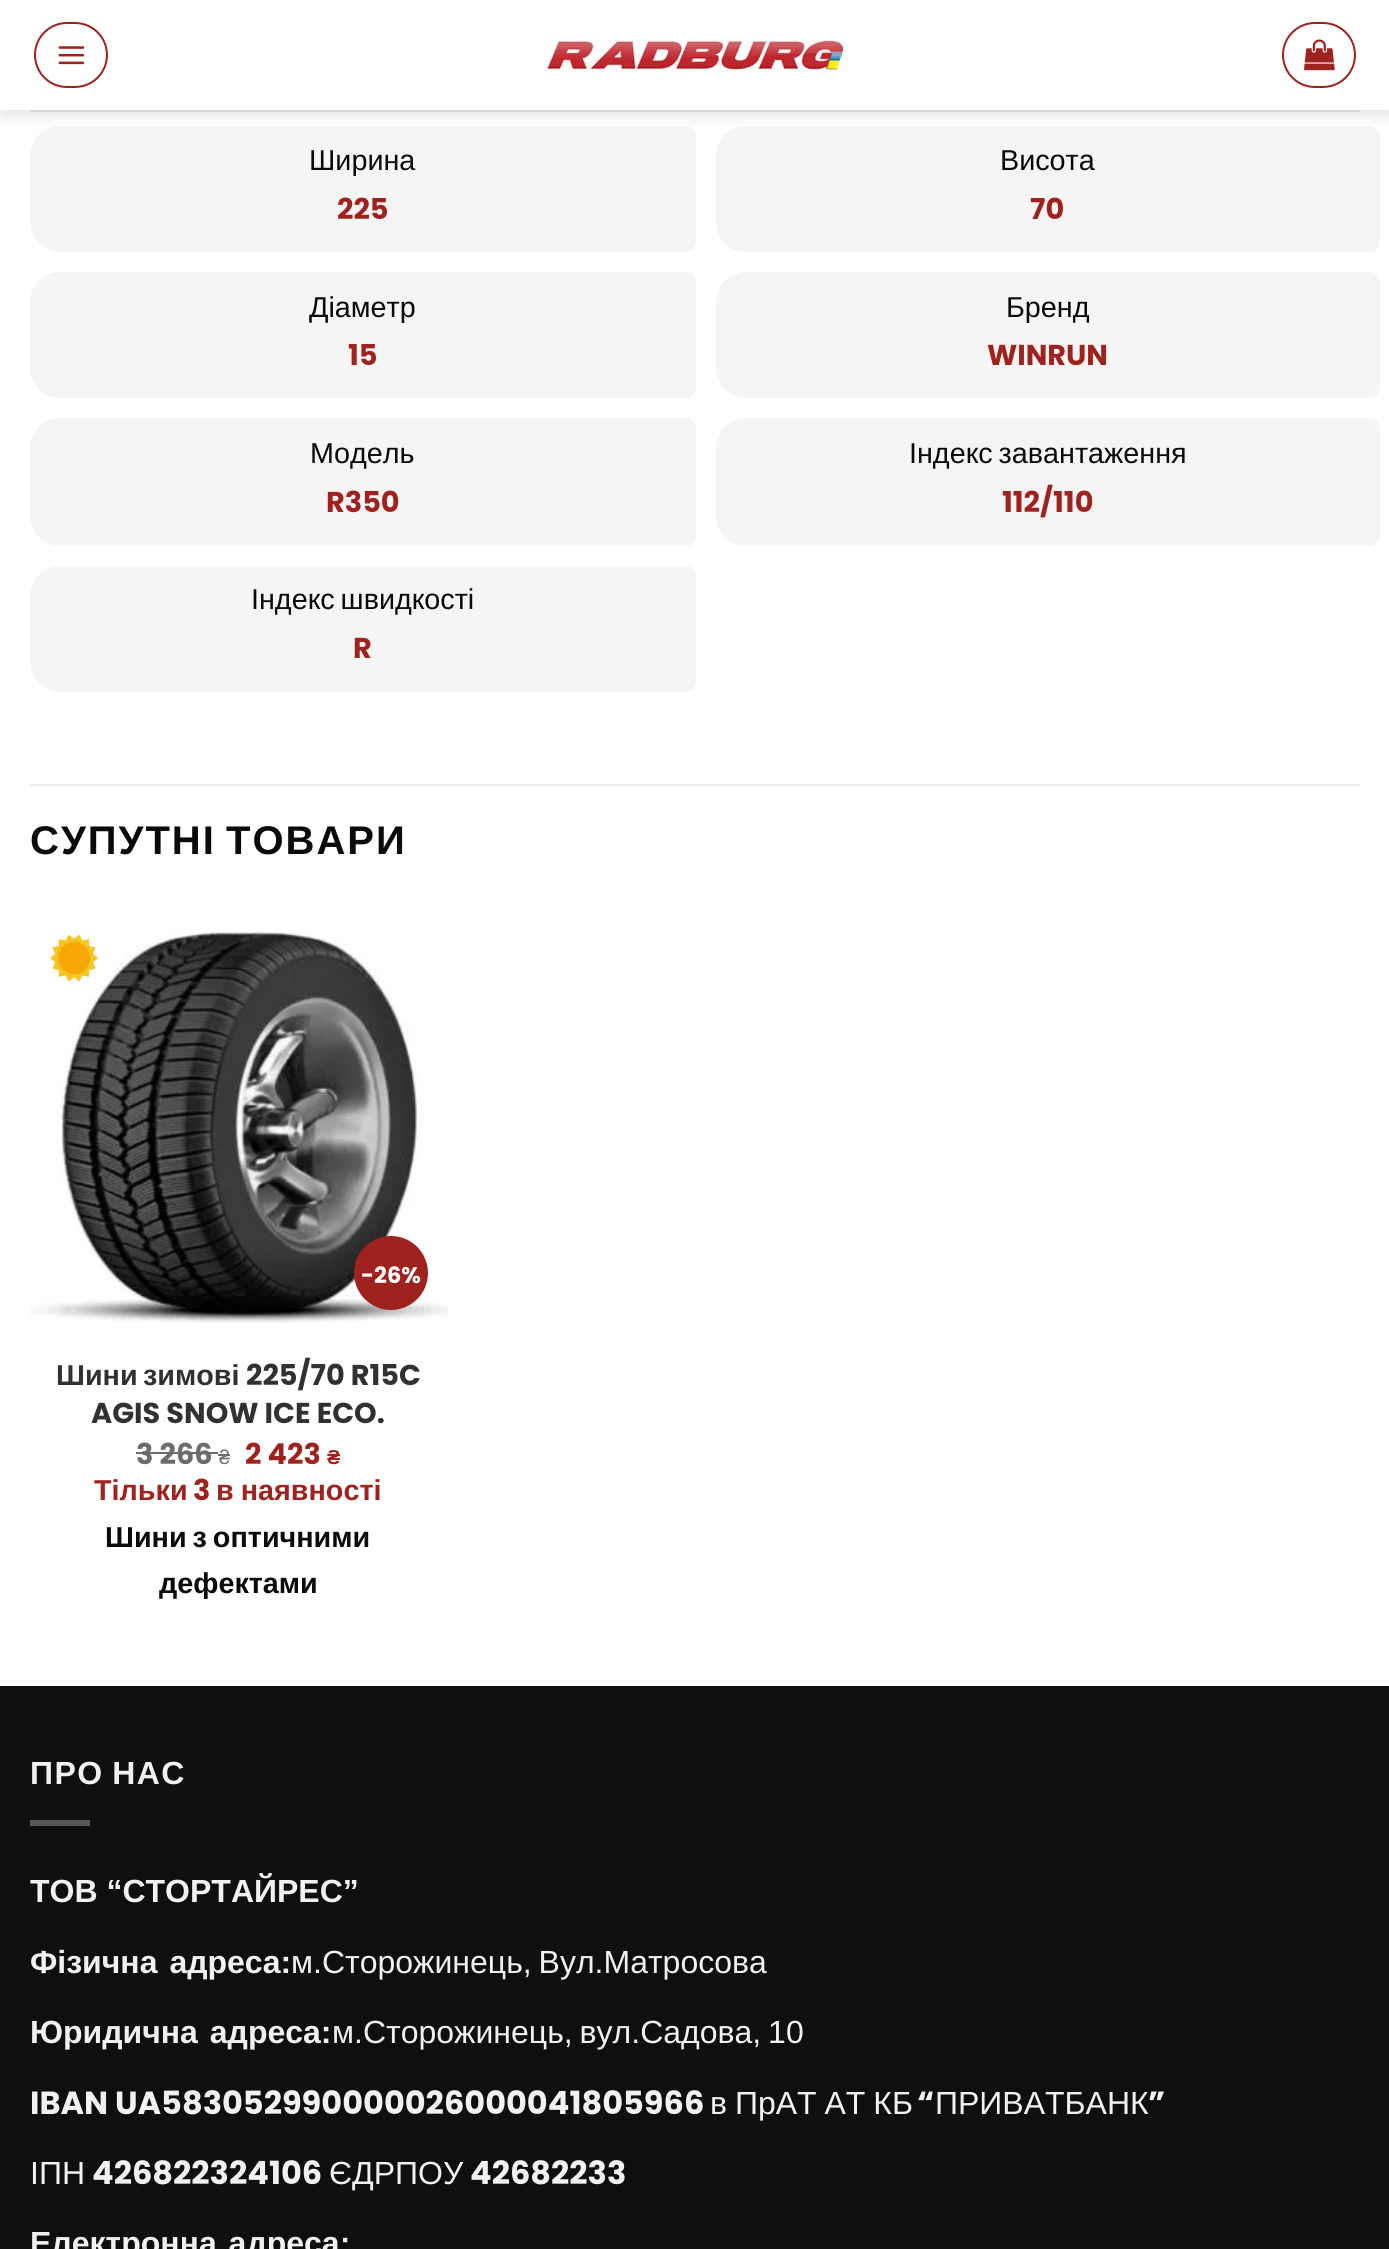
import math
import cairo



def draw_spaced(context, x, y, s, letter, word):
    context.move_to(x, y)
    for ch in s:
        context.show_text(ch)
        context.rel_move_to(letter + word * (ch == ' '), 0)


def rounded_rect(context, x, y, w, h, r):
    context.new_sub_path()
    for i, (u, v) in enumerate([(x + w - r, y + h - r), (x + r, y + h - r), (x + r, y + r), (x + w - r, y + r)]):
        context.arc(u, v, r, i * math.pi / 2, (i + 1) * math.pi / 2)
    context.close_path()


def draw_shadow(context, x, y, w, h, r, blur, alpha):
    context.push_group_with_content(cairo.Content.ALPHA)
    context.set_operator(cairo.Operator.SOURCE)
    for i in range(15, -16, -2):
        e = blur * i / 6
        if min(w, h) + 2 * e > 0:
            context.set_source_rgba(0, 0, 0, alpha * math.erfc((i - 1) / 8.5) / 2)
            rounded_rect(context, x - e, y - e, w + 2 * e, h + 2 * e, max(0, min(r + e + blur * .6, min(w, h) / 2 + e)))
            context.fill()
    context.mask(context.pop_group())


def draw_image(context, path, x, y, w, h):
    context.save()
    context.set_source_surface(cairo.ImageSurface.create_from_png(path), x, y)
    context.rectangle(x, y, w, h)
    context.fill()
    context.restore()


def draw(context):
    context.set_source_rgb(1, 1, 1)
    context.paint()
    context.set_source_rgb(245 / 255, 245 / 255, 245 / 255)
    context.new_path()
    context.move_to(60, 126)
    context.line_to(686, 126)
    context.curve_to(691.5, 126, 696, 130.5, 696, 136)
    context.line_to(696, 242)
    context.curve_to(696, 247.5, 691.5, 252, 686, 252)
    context.line_to(60, 252)
    context.curve_to(43.5, 252, 30, 238.5, 30, 222)
    context.line_to(30, 156)
    context.curve_to(30, 139.5, 43.5, 126, 60, 126)
    context.close_path()
    context.fill()
    context.new_path()
    context.move_to(746, 126)
    context.line_to(1370, 126)
    context.curve_to(1375.5, 126, 1380, 130.5, 1380, 136)
    context.line_to(1380, 242)
    context.curve_to(1380, 247.5, 1375.5, 252, 1370, 252)
    context.line_to(746, 252)
    context.curve_to(729.5, 252, 716, 238.5, 716, 222)
    context.line_to(716, 156)
    context.curve_to(716, 139.5, 729.5, 126, 746, 126)
    context.close_path()
    context.fill()
    context.set_source_rgb(0, 0, 0)
    draw_shadow(context, 2, 2, 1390, 110, 0, 10, 0.15)
    context.set_source_rgb(1, 1, 1)
    context.rectangle(0, 0, 1389, 110)
    context.fill()
    rounded_rect(context, 35, 23, 72, 64, 32)
    context.set_source_rgb(158 / 255, 35 / 255, 30 / 255)
    context.stroke()
    draw_image(context, "images/1.png", 58, 46, 27, 19)
    draw_image(context, "images/2.png", 546, 40, 298, 31)
    rounded_rect(context, 1283, 23, 72, 64, 32)
    context.stroke()
    draw_image(context, "images/3.png", 1304, 39, 31, 32)
    context.set_source_rgb(212 / 255, 212 / 255, 212 / 255)
    context.rectangle(30, 110, 1330, 2)
    context.fill()
    context.set_source_rgb(245 / 255, 245 / 255, 245 / 255)
    context.new_path()
    context.move_to(60, 272)
    context.line_to(686, 272)
    context.curve_to(691.5, 272, 696, 276.5, 696, 282)
    context.line_to(696, 388)
    context.curve_to(696, 393.5, 691.5, 398, 686, 398)
    context.line_to(60, 398)
    context.curve_to(43.5, 398, 30, 384.5, 30, 368)
    context.line_to(30, 302)
    context.curve_to(30, 285.5, 43.5, 272, 60, 272)
    context.close_path()
    context.fill()
    context.new_path()
    context.move_to(746, 272)
    context.line_to(1370, 272)
    context.curve_to(1375.5, 272, 1380, 276.5, 1380, 282)
    context.line_to(1380, 388)
    context.curve_to(1380, 393.5, 1375.5, 398, 1370, 398)
    context.line_to(746, 398)
    context.curve_to(729.5, 398, 716, 384.5, 716, 368)
    context.line_to(716, 302)
    context.curve_to(716, 285.5, 729.5, 272, 746, 272)
    context.close_path()
    context.fill()
    context.new_path()
    context.move_to(60, 418)
    context.line_to(686, 418)
    context.curve_to(691.5, 418, 696, 422.5, 696, 428)
    context.line_to(696, 536)
    context.curve_to(696, 541.5, 691.5, 546, 686, 546)
    context.line_to(60, 546)
    context.curve_to(43.5, 546, 30, 532.5, 30, 516)
    context.line_to(30, 448)
    context.curve_to(30, 431.5, 43.5, 418, 60, 418)
    context.close_path()
    context.fill()
    context.new_path()
    context.move_to(746, 418)
    context.line_to(1370, 418)
    context.curve_to(1375.5, 418, 1380, 422.5, 1380, 428)
    context.line_to(1380, 536)
    context.curve_to(1380, 541.5, 1375.5, 546, 1370, 546)
    context.line_to(746, 546)
    context.curve_to(729.5, 546, 716, 532.5, 716, 516)
    context.line_to(716, 448)
    context.curve_to(716, 431.5, 729.5, 418, 746, 418)
    context.close_path()
    context.fill()
    context.new_path()
    context.move_to(60, 566)
    context.line_to(686, 566)
    context.curve_to(691.5, 566, 696, 570.5, 696, 576)
    context.line_to(696, 682)
    context.curve_to(696, 687.5, 691.5, 692, 686, 692)
    context.line_to(60, 692)
    context.curve_to(43.5, 692, 30, 678.5, 30, 662)
    context.line_to(30, 596)
    context.curve_to(30, 579.5, 43.5, 566, 60, 566)
    context.close_path()
    context.fill()
    context.set_source_rgb(236 / 255, 236 / 255, 236 / 255)
    context.rectangle(30, 784, 1330, 2)
    context.fill()
    draw_image(context, "images/4.png", 30, 931, 418, 392)
    context.set_source_rgb(158 / 255, 35 / 255, 30 / 255)
    context.arc(391, 1273, 37, 0, 2 * math.pi)
    context.fill()
    draw_image(context, "images/5.png", 50, 934, 48, 48)
    context.set_source_rgb(108 / 255, 108 / 255, 108 / 255)
    context.rectangle(136, 1452, 82, 2)
    context.fill()
    context.rectangle(218, 1454, 12, 2)
    context.fill()
    context.set_source_rgb(15 / 255, 15 / 255, 15 / 255)
    context.rectangle(0, 1686, 1389, 563)
    context.fill()
    context.set_source_rgb(87 / 255, 87 / 255, 87 / 255)
    context.rectangle(30, 1820, 60, 6)
    context.fill()
    context.select_font_face("Liberation Sans")
    context.set_font_size(28.75)
    context.set_source_rgb(10 / 255, 10 / 255, 10 / 255)
    context.move_to(309, 170)
    context.show_text("Ширина")
    context.select_font_face("Poppins", cairo.FontSlant.NORMAL, cairo.FontWeight.BOLD)
    context.set_source_rgb(158 / 255, 35 / 255, 30 / 255)
    context.move_to(337, 219)
    context.show_text("225")
    context.select_font_face("Liberation Sans")
    context.set_source_rgb(10 / 255, 10 / 255, 10 / 255)
    context.move_to(1000, 170)
    context.show_text("Висота")
    context.select_font_face("Poppins", cairo.FontSlant.NORMAL, cairo.FontWeight.BOLD)
    context.set_source_rgb(158 / 255, 35 / 255, 30 / 255)
    context.move_to(1030, 219)
    context.show_text("70")
    context.select_font_face("Liberation Sans")
    context.set_source_rgb(10 / 255, 10 / 255, 10 / 255)
    context.move_to(309, 317)
    context.show_text("Діаметр")
    context.select_font_face("Poppins", cairo.FontSlant.NORMAL, cairo.FontWeight.BOLD)
    context.set_source_rgb(158 / 255, 35 / 255, 30 / 255)
    context.move_to(348, 365)
    context.show_text("15")
    context.select_font_face("Liberation Sans")
    context.set_source_rgb(10 / 255, 10 / 255, 10 / 255)
    context.move_to(1006, 317)
    context.show_text("Бренд")
    context.select_font_face("Poppins", cairo.FontSlant.NORMAL, cairo.FontWeight.BOLD)
    context.set_source_rgb(158 / 255, 35 / 255, 30 / 255)
    context.move_to(987, 365)
    context.show_text("WINRUN")
    context.select_font_face("Liberation Sans")
    context.set_source_rgb(10 / 255, 10 / 255, 10 / 255)
    context.move_to(310, 463)
    context.show_text("Модель")
    context.select_font_face("Poppins", cairo.FontSlant.NORMAL, cairo.FontWeight.BOLD)
    context.set_source_rgb(158 / 255, 35 / 255, 30 / 255)
    context.move_to(326, 512)
    context.show_text("R350")
    context.select_font_face("Liberation Sans")
    context.set_source_rgb(10 / 255, 10 / 255, 10 / 255)
    draw_spaced(context, 909, 463, "Індекс завантаження", 0, -2)
    context.select_font_face("Poppins", cairo.FontSlant.NORMAL, cairo.FontWeight.BOLD)
    context.set_source_rgb(158 / 255, 35 / 255, 30 / 255)
    context.move_to(1002, 512)
    context.show_text("112/110")
    context.select_font_face("Liberation Sans")
    context.set_source_rgb(10 / 255, 10 / 255, 10 / 255)
    draw_spaced(context, 251, 609, "Індекс швидкості", 0, -2)
    context.select_font_face("Poppins", cairo.FontSlant.NORMAL, cairo.FontWeight.BOLD)
    context.set_source_rgb(158 / 255, 35 / 255, 30 / 255)
    context.move_to(353, 658)
    context.show_text("R")
    context.select_font_face("Liberation Sans", cairo.FontSlant.NORMAL, cairo.FontWeight.BOLD)
    context.set_font_size(40)
    context.set_source_rgb(10 / 255, 10 / 255, 10 / 255)
    draw_spaced(context, 30, 854, "СУПУТНІ ТОВАРИ", 2, -3)
    context.select_font_face("Poppins", cairo.FontSlant.NORMAL, cairo.FontWeight.BOLD)
    context.set_font_size(22.5)
    context.set_source_rgb(1, 1, 1)
    context.move_to(361, 1283)
    context.show_text("-26%")
    context.select_font_face("Liberation Sans", cairo.FontSlant.NORMAL, cairo.FontWeight.BOLD)
    context.set_font_size(28.75)
    context.set_source_rgb(49 / 255, 49 / 255, 49 / 255)
    context.move_to(56, 1385)
    context.show_text("Шини")
    context.move_to(143, 1385)
    context.show_text("зимові")
    context.select_font_face("Poppins", cairo.FontSlant.NORMAL, cairo.FontWeight.BOLD)
    context.move_to(246, 1385)
    context.show_text("225/70 R15C")
    context.move_to(91, 1423)
    context.show_text("AGIS SNOW ICE ECO.")
    context.set_source_rgb(108 / 255, 108 / 255, 108 / 255)
    context.move_to(136, 1464)
    context.show_text("3 266")
    context.select_font_face("Liberation Sans")
    context.set_font_size(20)
    context.move_to(219, 1464)
    context.show_text("₴")
    context.select_font_face("Poppins", cairo.FontSlant.NORMAL, cairo.FontWeight.BOLD)
    context.set_font_size(28.75)
    context.set_source_rgb(158 / 255, 35 / 255, 30 / 255)
    context.move_to(245, 1464)
    context.show_text("2 423")
    context.select_font_face("Liberation Sans", cairo.FontSlant.NORMAL, cairo.FontWeight.BOLD)
    context.set_font_size(20)
    context.move_to(327, 1464)
    context.show_text("₴")
    context.set_font_size(28.75)
    context.move_to(94, 1500)
    context.show_text("Тільки")
    context.select_font_face("Poppins", cairo.FontSlant.NORMAL, cairo.FontWeight.BOLD)
    context.move_to(193, 1500)
    context.show_text("3")
    context.select_font_face("Liberation Sans", cairo.FontSlant.NORMAL, cairo.FontWeight.BOLD)
    draw_spaced(context, 216, 1500, "в наявності", 0, -1)
    context.set_source_rgb(10 / 255, 10 / 255, 10 / 255)
    draw_spaced(context, 105, 1547, "Шини з оптичними", 0, -2)
    context.move_to(159, 1593)
    context.show_text("дефектами")
    context.set_font_size(32)
    context.set_source_rgb(241 / 255, 241 / 255, 241 / 255)
    draw_spaced(context, 30, 1784, "ПРО НАС", 1.5, -2)
    context.move_to(30, 1902)
    context.show_text("ТОВ “СТОРТАЙРЕС”")
    draw_spaced(context, 30, 1973, "Фізична адреса:", 0, 3)
    context.select_font_face("Liberation Sans")
    draw_spaced(context, 291, 1973, "м.Сторожинець, Вул.Матросова", 0, -2)
    context.select_font_face("Liberation Sans", cairo.FontSlant.NORMAL, cairo.FontWeight.BOLD)
    draw_spaced(context, 30, 2043, "Юридична адреса:", 0, 3)
    context.select_font_face("Liberation Sans")
    draw_spaced(context, 332, 2043, "м.Сторожинець, вул.Садова, 10", 0, -2)
    context.select_font_face("Poppins", cairo.FontSlant.NORMAL, cairo.FontWeight.BOLD)
    context.move_to(30, 2114)
    context.show_text("IBAN UA583052990000026000041805966")
    context.select_font_face("Liberation Sans")
    draw_spaced(context, 710, 2114, "в ПрАТ АТ КБ", 0, -1)
    context.select_font_face("Poppins", cairo.FontSlant.NORMAL, cairo.FontWeight.BOLD)
    context.move_to(917, 2114)
    context.show_text("“")
    context.select_font_face("Liberation Sans")
    context.move_to(935, 2114)
    context.show_text("ПРИВАТБАНК")
    context.select_font_face("Poppins", cairo.FontSlant.NORMAL, cairo.FontWeight.BOLD)
    context.move_to(1148, 2114)
    context.show_text("”")
    context.select_font_face("Liberation Sans")
    context.move_to(30, 2184)
    context.show_text("ІПН")
    context.select_font_face("Poppins", cairo.FontSlant.NORMAL, cairo.FontWeight.BOLD)
    context.move_to(92, 2184)
    context.show_text("426822324106")
    context.select_font_face("Liberation Sans")
    context.move_to(329, 2184)
    context.show_text("ЄДРПОУ")
    context.select_font_face("Poppins", cairo.FontSlant.NORMAL, cairo.FontWeight.BOLD)
    context.move_to(470, 2184)
    context.show_text("42682233")
    context.select_font_face("Liberation Sans", cairo.FontSlant.NORMAL, cairo.FontWeight.BOLD)
    draw_spaced(context, 30, 2254, "Електронна адреса:", 0, 3)


surface = cairo.ImageSurface(cairo.Format.RGB24, 1389, 2249)
context = cairo.Context(surface)
options = cairo.FontOptions()
options.set_hint_metrics(cairo.HintMetrics.OFF)
options.set_hint_style(cairo.HintStyle.NONE)
context.set_font_options(options)
context.set_miter_limit(4)
draw(context)
surface.write_to_png("out.png")
